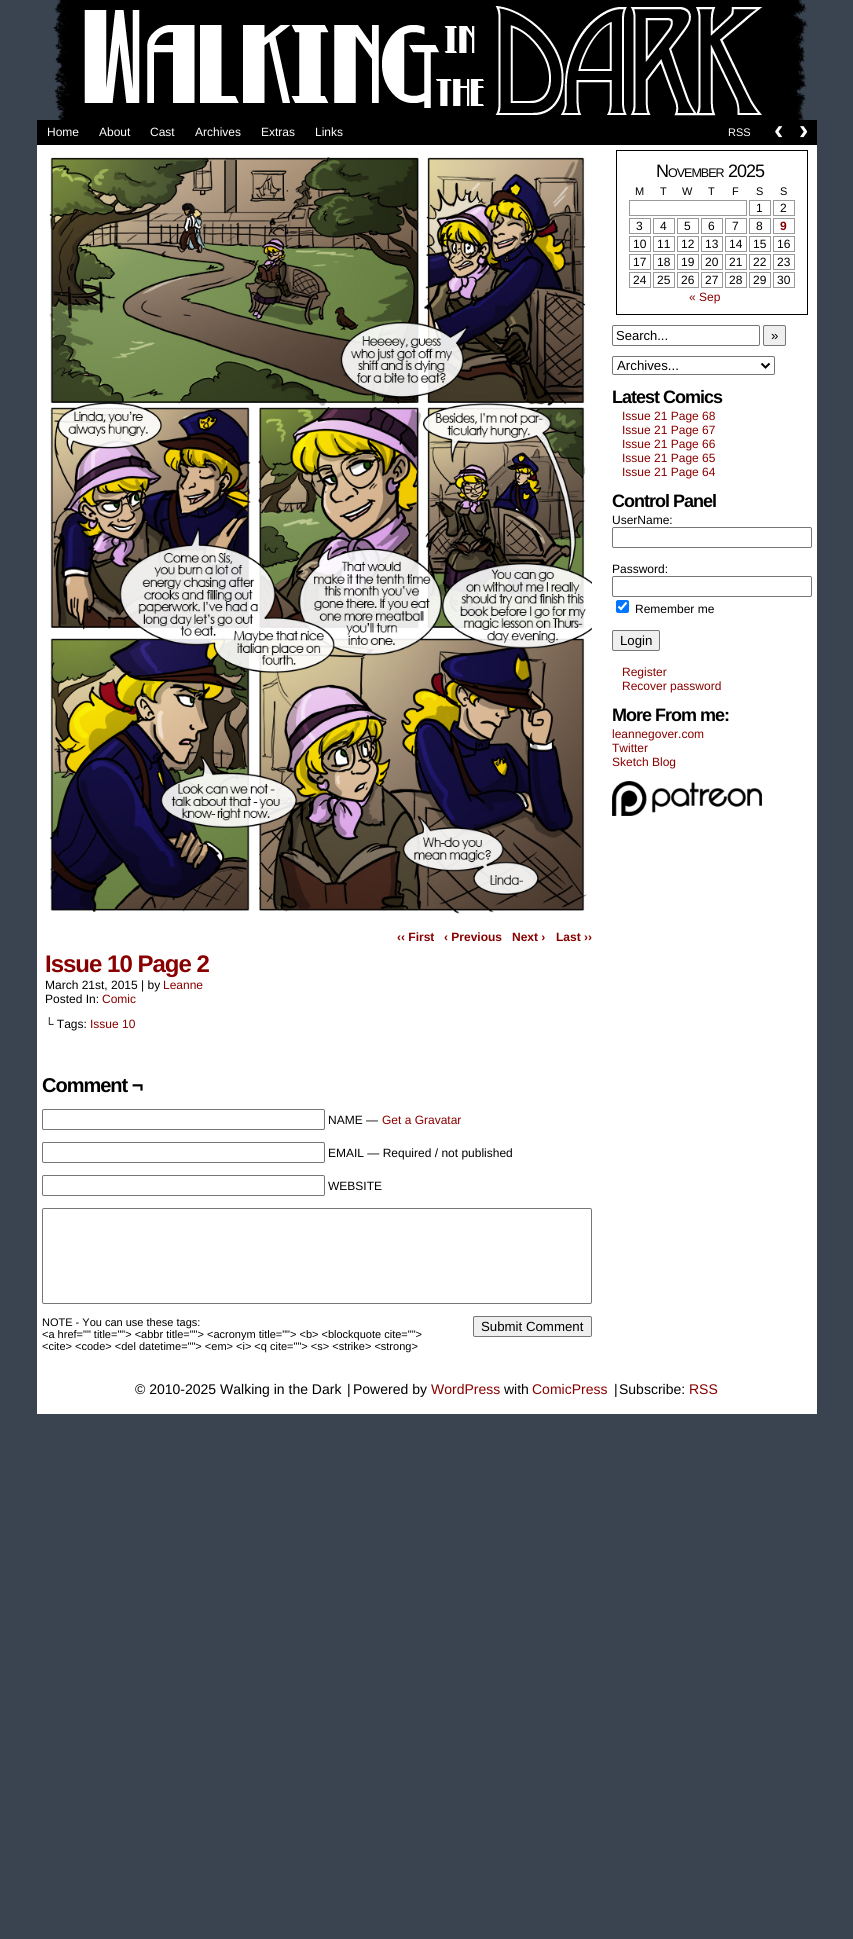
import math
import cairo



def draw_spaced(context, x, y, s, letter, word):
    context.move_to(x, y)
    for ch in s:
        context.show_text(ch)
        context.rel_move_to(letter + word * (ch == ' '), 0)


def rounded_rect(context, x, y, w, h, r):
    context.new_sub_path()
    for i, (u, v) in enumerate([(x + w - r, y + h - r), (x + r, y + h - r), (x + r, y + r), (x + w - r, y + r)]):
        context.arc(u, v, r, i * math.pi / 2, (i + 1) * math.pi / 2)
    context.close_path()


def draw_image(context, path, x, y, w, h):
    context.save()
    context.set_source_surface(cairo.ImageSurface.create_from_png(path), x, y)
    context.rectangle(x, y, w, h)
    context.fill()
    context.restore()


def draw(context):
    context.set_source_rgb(57 / 255, 68 / 255, 80 / 255)
    context.paint()
    context.set_source_rgb(1, 1, 1)
    context.rectangle(37, 145, 780, 1269)
    context.fill()
    draw_image(context, "images/1.png", 37, 0, 780, 120)
    context.set_source_rgb(0, 0, 0)
    context.rectangle(37, 120, 780, 25)
    context.fill()
    context.rectangle(616.5, 150.5, 191, 164)
    context.set_line_width(1)
    context.stroke()
    context.rectangle(629.5, 200.5, 117, 15)
    context.set_source_rgb(153 / 255, 153 / 255, 153 / 255)
    context.stroke()
    context.rectangle(749.5, 200.5, 21, 15)
    context.stroke()
    context.rectangle(773.5, 200.5, 21, 15)
    context.stroke()
    context.rectangle(629.5, 218.5, 21, 15)
    context.stroke()
    context.rectangle(653.5, 218.5, 21, 15)
    context.stroke()
    context.rectangle(677.5, 218.5, 21, 15)
    context.stroke()
    context.rectangle(701.5, 218.5, 21, 15)
    context.stroke()
    context.rectangle(725.5, 218.5, 21, 15)
    context.stroke()
    context.rectangle(749.5, 218.5, 21, 15)
    context.stroke()
    context.rectangle(773.5, 218.5, 21, 15)
    context.stroke()
    context.rectangle(629.5, 236.5, 21, 15)
    context.stroke()
    context.rectangle(653.5, 236.5, 21, 15)
    context.stroke()
    context.rectangle(677.5, 236.5, 21, 15)
    context.stroke()
    context.rectangle(701.5, 236.5, 21, 15)
    context.stroke()
    context.rectangle(725.5, 236.5, 21, 15)
    context.stroke()
    context.rectangle(749.5, 236.5, 21, 15)
    context.stroke()
    context.rectangle(773.5, 236.5, 21, 15)
    context.stroke()
    context.rectangle(629.5, 254.5, 21, 15)
    context.stroke()
    context.rectangle(653.5, 254.5, 21, 15)
    context.stroke()
    context.rectangle(677.5, 254.5, 21, 15)
    context.stroke()
    context.rectangle(701.5, 254.5, 21, 15)
    context.stroke()
    context.rectangle(725.5, 254.5, 21, 15)
    context.stroke()
    context.rectangle(749.5, 254.5, 21, 15)
    context.stroke()
    context.rectangle(773.5, 254.5, 21, 15)
    context.stroke()
    context.rectangle(629.5, 272.5, 21, 15)
    context.stroke()
    context.rectangle(653.5, 272.5, 21, 15)
    context.stroke()
    context.rectangle(677.5, 272.5, 21, 15)
    context.stroke()
    context.rectangle(701.5, 272.5, 21, 15)
    context.stroke()
    context.rectangle(725.5, 272.5, 21, 15)
    context.stroke()
    context.rectangle(749.5, 272.5, 21, 15)
    context.stroke()
    context.rectangle(773.5, 272.5, 21, 15)
    context.stroke()
    rounded_rect(context, 612.5, 325.5, 147, 20, 1.5)
    context.set_source_rgb(118 / 255, 118 / 255, 118 / 255)
    context.stroke()
    context.set_source_rgb(239 / 255, 239 / 255, 239 / 255)
    rounded_rect(context, 763.5, 325.5, 22, 20, 1.5)
    context.fill_preserve()
    context.set_source_rgb(118 / 255, 118 / 255, 118 / 255)
    context.stroke()
    rounded_rect(context, 612.5, 356.5, 162, 18, 1.5)
    context.stroke()
    context.new_path()
    context.move_to(761.5, 363.5)
    context.line_to(765.5, 367.5)
    context.line_to(769.5, 363.5)
    context.set_source_rgb(0, 0, 0)
    context.set_line_width(2)
    context.stroke()
    rounded_rect(context, 612.5, 527.5, 199, 20, 1.5)
    context.set_source_rgb(118 / 255, 118 / 255, 118 / 255)
    context.set_line_width(1)
    context.stroke()
    rounded_rect(context, 612.5, 576.5, 199, 20, 1.5)
    context.stroke()
    context.set_source_rgb(0, 117 / 255, 1)
    rounded_rect(context, 616, 600, 13, 13, 2)
    context.fill()
    context.new_path()
    context.move_to(618.5, 606.5)
    context.line_to(621, 609)
    context.line_to(626.5, 602.5)
    context.set_source_rgb(1, 1, 1)
    context.set_line_width(2.1)
    context.stroke()
    context.set_source_rgb(239 / 255, 239 / 255, 239 / 255)
    rounded_rect(context, 612.5, 630.5, 47, 20, 1.5)
    context.fill_preserve()
    context.set_source_rgb(118 / 255, 118 / 255, 118 / 255)
    context.set_line_width(1)
    context.stroke()
    draw_image(context, "images/2.png", 612, 781, 150, 35)
    draw_image(context, "images/3.png", 49, 157, 543, 757)
    rounded_rect(context, 42.5, 1109.5, 282, 20, 1.5)
    context.stroke()
    rounded_rect(context, 42.5, 1142.5, 282, 20, 1.5)
    context.stroke()
    rounded_rect(context, 42.5, 1175.5, 282, 20, 1.5)
    context.stroke()
    rounded_rect(context, 42.5, 1208.5, 549, 95, 1.5)
    context.stroke()
    context.set_source_rgb(239 / 255, 239 / 255, 239 / 255)
    rounded_rect(context, 473.5, 1316.5, 118, 20, 1.5)
    context.fill_preserve()
    context.set_source_rgb(118 / 255, 118 / 255, 118 / 255)
    context.stroke()
    context.select_font_face("Liberation Sans")
    context.set_font_size(12)
    context.set_source_rgb(1, 1, 1)
    context.move_to(47, 136)
    context.show_text("Home")
    context.move_to(99, 136)
    context.show_text("About")
    context.move_to(150, 136)
    context.show_text("Cast")
    context.move_to(195, 136)
    context.show_text("Archives")
    context.move_to(261, 136)
    context.show_text("Extras")
    context.move_to(315, 136)
    context.show_text("Links")
    context.set_font_size(11)
    context.move_to(728, 136)
    context.show_text("RSS")
    context.select_font_face("Liberation Sans", cairo.FontSlant.NORMAL, cairo.FontWeight.BOLD)
    context.set_font_size(28)
    context.move_to(774, 139)
    context.show_text("‹")
    context.move_to(799, 139)
    context.show_text("›")
    context.select_font_face("Liberation Sans")
    context.set_font_size(18)
    context.set_source_rgb(0, 0, 0)
    draw_spaced(context, 656, 177, "N", -1, 0)
    context.set_font_size(12.5)
    draw_spaced(context, 668, 177, "OVEMBER", -1, 0)
    context.set_font_size(18)
    draw_spaced(context, 728, 177, "2025", -1, 0)
    context.set_font_size(11)
    context.move_to(635, 195)
    context.show_text("M")
    context.move_to(660, 195)
    context.show_text("T")
    context.move_to(682, 195)
    context.show_text("W")
    context.move_to(708, 195)
    context.show_text("T")
    context.move_to(732, 195)
    context.show_text("F")
    context.move_to(756, 195)
    context.show_text("S")
    context.move_to(780, 195)
    context.show_text("S")
    context.set_font_size(12)
    context.move_to(756, 212)
    context.show_text("1")
    context.move_to(780, 212)
    context.show_text("2")
    context.move_to(636, 230)
    context.show_text("3")
    context.move_to(660, 230)
    context.show_text("4")
    context.move_to(684, 230)
    context.show_text("5")
    context.move_to(708, 230)
    context.show_text("6")
    context.move_to(732, 230)
    context.show_text("7")
    context.move_to(756, 230)
    context.show_text("8")
    context.select_font_face("Liberation Sans", cairo.FontSlant.NORMAL, cairo.FontWeight.BOLD)
    context.set_source_rgb(136 / 255, 0, 0)
    context.move_to(780, 230)
    context.show_text("9")
    context.select_font_face("Liberation Sans")
    context.set_source_rgb(0, 0, 0)
    context.move_to(633, 248)
    context.show_text("10")
    context.move_to(657, 248)
    context.show_text("11")
    context.move_to(681, 248)
    context.show_text("12")
    context.move_to(705, 248)
    context.show_text("13")
    context.move_to(729, 248)
    context.show_text("14")
    context.move_to(753, 248)
    context.show_text("15")
    context.move_to(777, 248)
    context.show_text("16")
    context.move_to(633, 266)
    context.show_text("17")
    context.move_to(657, 266)
    context.show_text("18")
    context.move_to(681, 266)
    context.show_text("19")
    context.move_to(705, 266)
    context.show_text("20")
    context.move_to(729, 266)
    context.show_text("21")
    context.move_to(753, 266)
    context.show_text("22")
    context.move_to(777, 266)
    context.show_text("23")
    context.move_to(633, 284)
    context.show_text("24")
    context.move_to(657, 284)
    context.show_text("25")
    context.move_to(681, 284)
    context.show_text("26")
    context.move_to(705, 284)
    context.show_text("27")
    context.move_to(729, 284)
    context.show_text("28")
    context.move_to(753, 284)
    context.show_text("29")
    context.move_to(777, 284)
    context.show_text("30")
    context.set_source_rgb(136 / 255, 0, 0)
    context.move_to(689, 301)
    context.show_text("« Sep")
    context.set_font_size(13)
    context.set_source_rgb(0, 0, 0)
    context.move_to(616, 340)
    context.show_text("Search...")
    context.set_font_size(13.25)
    context.move_to(771, 340)
    context.show_text("»")
    context.move_to(617, 370)
    context.show_text("Archives...")
    context.select_font_face("Liberation Sans", cairo.FontSlant.NORMAL, cairo.FontWeight.BOLD)
    context.set_font_size(18)
    draw_spaced(context, 612, 403, "Latest Comics", -1, 0)
    context.select_font_face("Liberation Sans")
    context.set_font_size(12)
    context.set_source_rgb(136 / 255, 0, 0)
    context.move_to(622, 420)
    context.show_text("Issue 21 Page 68")
    context.move_to(622, 434)
    context.show_text("Issue 21 Page 67")
    context.move_to(622, 448)
    context.show_text("Issue 21 Page 66")
    context.move_to(622, 462)
    context.show_text("Issue 21 Page 65")
    context.move_to(622, 476)
    context.show_text("Issue 21 Page 64")
    context.select_font_face("Liberation Sans", cairo.FontSlant.NORMAL, cairo.FontWeight.BOLD)
    context.set_font_size(18)
    context.set_source_rgb(0, 0, 0)
    draw_spaced(context, 612, 507, "Control Panel", -1, 0)
    context.select_font_face("Liberation Sans")
    context.set_font_size(12)
    context.move_to(612, 524)
    context.show_text("UserName:")
    context.move_to(612, 573)
    context.show_text("Password:")
    context.move_to(635, 613)
    context.show_text("Remember me")
    context.set_font_size(13.25)
    context.move_to(620, 645)
    context.show_text("Login")
    context.set_font_size(12)
    context.set_source_rgb(136 / 255, 0, 0)
    context.move_to(622, 676)
    context.show_text("Register")
    context.move_to(622, 690)
    context.show_text("Recover password")
    context.select_font_face("Liberation Sans", cairo.FontSlant.NORMAL, cairo.FontWeight.BOLD)
    context.set_font_size(18)
    context.set_source_rgb(0, 0, 0)
    draw_spaced(context, 612, 721, "More From me:", -1, 0)
    context.select_font_face("Liberation Sans")
    context.set_font_size(12)
    context.set_source_rgb(136 / 255, 0, 0)
    context.move_to(612, 738)
    context.show_text("leannegover.com")
    context.move_to(612, 752)
    context.show_text("Twitter")
    context.move_to(612, 766)
    context.show_text("Sketch Blog")
    context.select_font_face("Liberation Sans", cairo.FontSlant.NORMAL, cairo.FontWeight.BOLD)
    context.move_to(397, 941)
    context.show_text("‹‹ First")
    context.move_to(444, 941)
    context.show_text("‹ Previous")
    context.move_to(512, 941)
    context.show_text("Next ›")
    context.move_to(556, 941)
    context.show_text("Last ››")
    context.set_font_size(24)
    draw_spaced(context, 45, 972, "Issue 10 Page 2", -1, 0)
    context.select_font_face("Liberation Sans")
    context.set_font_size(12)
    context.set_source_rgb(0, 0, 0)
    context.move_to(45, 989)
    context.show_text("March 21st, 2015 | by")
    context.set_source_rgb(136 / 255, 0, 0)
    context.move_to(163, 989)
    context.show_text("Leanne")
    context.set_source_rgb(0, 0, 0)
    context.move_to(45, 1003)
    context.show_text("Posted In:")
    context.set_source_rgb(136 / 255, 0, 0)
    context.move_to(102, 1003)
    context.show_text("Comic")
    context.set_source_rgb(0, 0, 0)
    context.move_to(45, 1028)
    context.show_text("└ Tags:")
    context.set_source_rgb(136 / 255, 0, 0)
    context.move_to(90, 1028)
    context.show_text("Issue 10")
    context.select_font_face("Liberation Sans", cairo.FontSlant.NORMAL, cairo.FontWeight.BOLD)
    context.set_font_size(20)
    context.set_source_rgb(0, 0, 0)
    draw_spaced(context, 42, 1092, "Comment ¬", -1, 0)
    context.select_font_face("Liberation Sans")
    context.set_font_size(12)
    context.move_to(328, 1124)
    context.show_text("NAME —")
    context.set_source_rgb(136 / 255, 0, 0)
    context.move_to(382, 1124)
    context.show_text("Get a Gravatar")
    context.set_source_rgb(0, 0, 0)
    context.move_to(328, 1157)
    context.show_text("EMAIL — Required / not published")
    context.move_to(328, 1190)
    context.show_text("WEBSITE")
    context.set_font_size(11)
    context.move_to(42, 1326)
    context.show_text("NOTE - You can use these tags:")
    context.move_to(42, 1338)
    context.show_text("<a href=\"\" title=\"\"> <abbr title=\"\"> <acronym title=\"\"> <b> <blockquote cite=\"\">")
    context.move_to(42, 1350)
    context.show_text("<cite> <code> <del datetime=\"\"> <em> <i> <q cite=\"\"> <s> <strike> <strong>")
    context.set_font_size(13.25)
    context.move_to(481, 1331)
    context.show_text("Submit Comment")
    context.set_font_size(14)
    context.move_to(135, 1394)
    context.show_text("© 2010-2025 Walking in the Dark")
    context.move_to(347, 1394)
    context.show_text("|")
    context.move_to(353, 1394)
    context.show_text("Powered by")
    context.set_source_rgb(136 / 255, 0, 0)
    context.move_to(431, 1394)
    context.show_text("WordPress")
    context.set_source_rgb(0, 0, 0)
    context.move_to(504, 1394)
    context.show_text("with")
    context.set_source_rgb(136 / 255, 0, 0)
    context.move_to(532, 1394)
    context.show_text("ComicPress")
    context.set_source_rgb(0, 0, 0)
    context.move_to(614, 1394)
    context.show_text("|")
    context.move_to(619, 1394)
    context.show_text("Subscribe:")
    context.set_source_rgb(136 / 255, 0, 0)
    context.move_to(689, 1394)
    context.show_text("RSS")


surface = cairo.ImageSurface(cairo.Format.RGB24, 853, 1939)
context = cairo.Context(surface)
options = cairo.FontOptions()
options.set_hint_metrics(cairo.HintMetrics.OFF)
options.set_hint_style(cairo.HintStyle.NONE)
context.set_font_options(options)
context.set_miter_limit(4)
draw(context)
surface.write_to_png("out.png")
